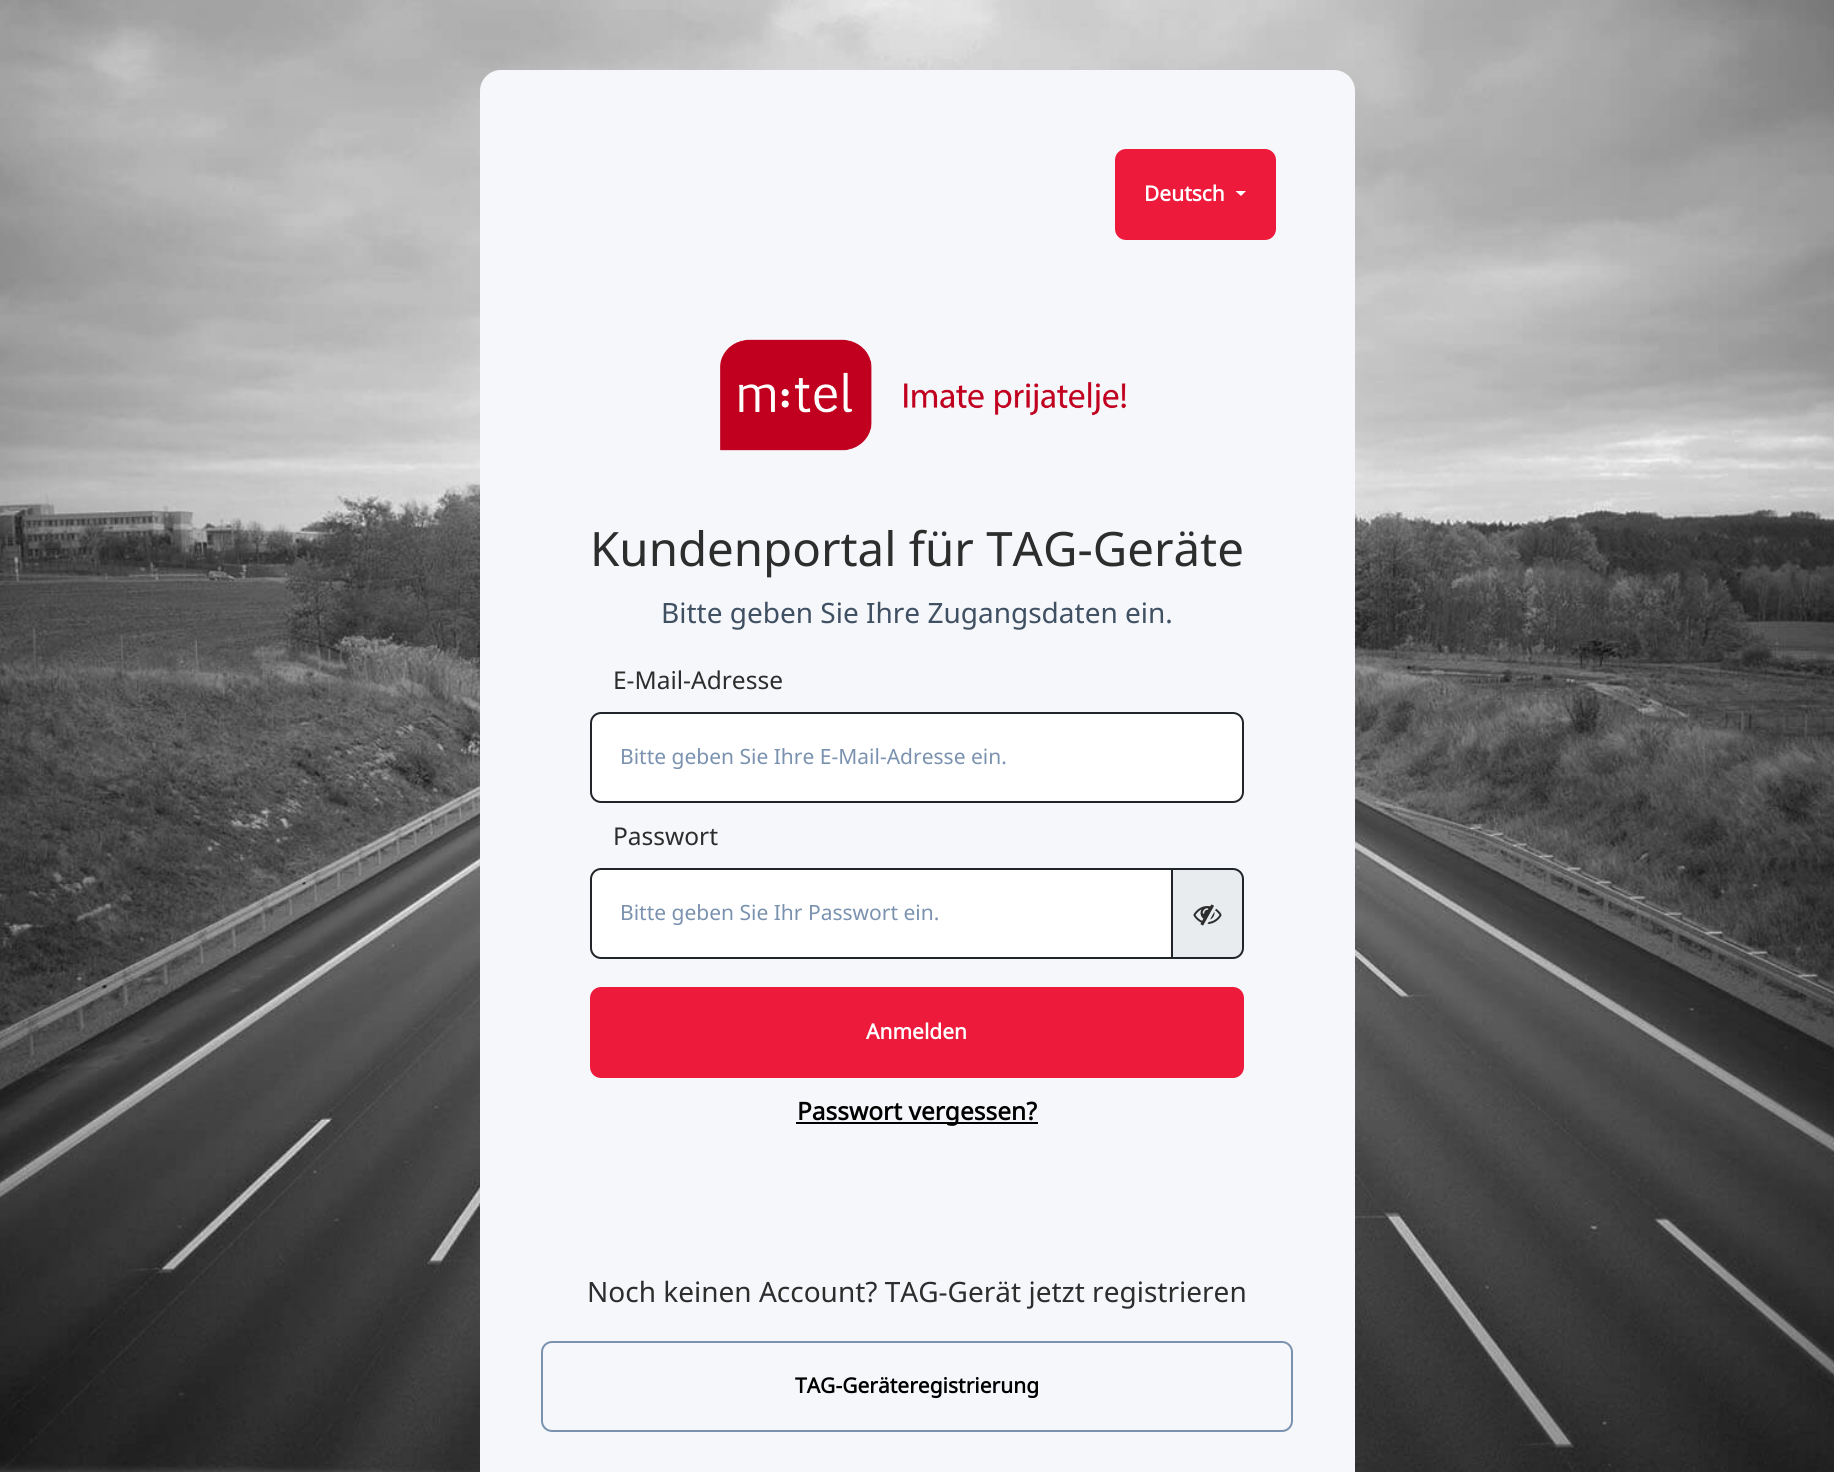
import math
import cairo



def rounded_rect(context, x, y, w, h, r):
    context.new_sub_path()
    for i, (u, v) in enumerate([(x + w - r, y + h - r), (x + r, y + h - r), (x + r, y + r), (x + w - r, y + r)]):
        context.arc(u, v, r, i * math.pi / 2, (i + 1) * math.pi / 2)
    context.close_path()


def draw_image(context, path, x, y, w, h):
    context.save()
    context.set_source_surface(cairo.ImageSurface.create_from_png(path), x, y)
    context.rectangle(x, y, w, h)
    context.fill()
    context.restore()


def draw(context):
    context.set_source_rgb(1, 1, 1)
    context.paint()
    draw_image(context, "images/1.png", 0, 0, 1834, 1472)
    context.set_source_rgb(245 / 255, 247 / 255, 250 / 255)
    rounded_rect(context, 480, 70, 875, 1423, 21)
    context.fill()
    context.set_source_rgb(237 / 255, 26 / 255, 59 / 255)
    rounded_rect(context, 1116, 150, 159, 89, 10)
    context.fill_preserve()
    context.stroke()
    context.set_source_rgb(1, 1, 1)
    context.new_path()
    context.move_to(1235.5, 191)
    context.line_to(1246, 191)
    context.line_to(1241, 196)
    context.close_path()
    context.fill()
    draw_image(context, "images/2.png", 720, 339, 406, 112)
    rounded_rect(context, 591, 713, 652, 89, 10)
    context.fill_preserve()
    context.set_source_rgb(33 / 255, 37 / 255, 41 / 255)
    context.stroke()
    context.set_source_rgb(233 / 255, 236 / 255, 239 / 255)
    context.new_path()
    context.move_to(1172, 869)
    context.line_to(1233, 869)
    context.curve_to(1238.5, 869, 1243, 873.5, 1243, 879)
    context.line_to(1243, 948)
    context.curve_to(1243, 953.5, 1238.5, 958, 1233, 958)
    context.line_to(1172, 958)
    context.close_path()
    context.fill_preserve()
    context.set_source_rgb(33 / 255, 37 / 255, 41 / 255)
    context.stroke()
    context.set_source_rgb(1, 1, 1)
    context.new_path()
    context.move_to(601, 869)
    context.line_to(1172, 869)
    context.line_to(1172, 958)
    context.line_to(601, 958)
    context.curve_to(595.5, 958, 591, 953.5, 591, 948)
    context.line_to(591, 879)
    context.curve_to(591, 873.5, 595.5, 869, 601, 869)
    context.close_path()
    context.fill_preserve()
    context.set_source_rgb(33 / 255, 37 / 255, 41 / 255)
    context.stroke()
    draw_image(context, "images/3.png", 1193, 904, 29, 22)
    context.set_source_rgb(237 / 255, 26 / 255, 59 / 255)
    rounded_rect(context, 591, 988, 652, 89, 10)
    context.fill_preserve()
    context.stroke()
    context.set_source_rgb(0, 0, 0)
    context.rectangle(796, 1122, 242, 2)
    context.fill()
    rounded_rect(context, 542, 1342, 750, 89, 10)
    context.set_source_rgb(122 / 255, 146 / 255, 175 / 255)
    context.stroke()
    context.select_font_face("Noto Sans", cairo.FontSlant.NORMAL, cairo.FontWeight.BOLD)
    context.set_font_size(21)
    context.set_source_rgb(1, 1, 1)
    context.move_to(1144, 201)
    context.show_text("Deutsch")
    context.select_font_face("Noto Sans")
    context.set_font_size(47.4)
    context.set_source_rgb(45 / 255, 45 / 255, 45 / 255)
    context.move_to(590, 566)
    context.show_text("Kundenportal für TAG-Geräte")
    context.set_font_size(28)
    context.set_source_rgb(64 / 255, 80 / 255, 99 / 255)
    context.move_to(661, 623)
    context.show_text("Bitte geben Sie Ihre Zugangsdaten ein.")
    context.set_font_size(24.5)
    context.set_source_rgb(45 / 255, 45 / 255, 45 / 255)
    context.move_to(613, 689)
    context.show_text("E-Mail-Adresse")
    context.set_font_size(21)
    context.set_source_rgb(122 / 255, 146 / 255, 175 / 255)
    context.move_to(620, 764)
    context.show_text("Bitte geben Sie Ihre E-Mail-Adresse ein.")
    context.set_font_size(24.5)
    context.set_source_rgb(45 / 255, 45 / 255, 45 / 255)
    context.move_to(613, 845)
    context.show_text("Passwort")
    context.set_font_size(21)
    context.set_source_rgb(122 / 255, 146 / 255, 175 / 255)
    context.move_to(620, 920)
    context.show_text("Bitte geben Sie Ihr Passwort ein.")
    context.select_font_face("Noto Sans", cairo.FontSlant.NORMAL, cairo.FontWeight.BOLD)
    context.set_source_rgb(1, 1, 1)
    context.move_to(866, 1039)
    context.show_text("Anmelden")
    context.set_font_size(24.5)
    context.set_source_rgb(0, 0, 0)
    context.move_to(797, 1120)
    context.show_text("Passwort vergessen?")
    context.select_font_face("Noto Sans")
    context.set_font_size(28)
    context.set_source_rgb(45 / 255, 45 / 255, 45 / 255)
    context.move_to(587, 1302)
    context.show_text("Noch keinen Account? TAG-Gerät jetzt registrieren")
    context.select_font_face("Noto Sans", cairo.FontSlant.NORMAL, cairo.FontWeight.BOLD)
    context.set_font_size(21)
    context.set_source_rgb(0, 0, 0)
    context.move_to(795, 1393)
    context.show_text("TAG-Geräteregistrierung")


surface = cairo.ImageSurface(cairo.Format.RGB24, 1834, 1472)
context = cairo.Context(surface)
options = cairo.FontOptions()
options.set_hint_metrics(cairo.HintMetrics.OFF)
options.set_hint_style(cairo.HintStyle.NONE)
context.set_font_options(options)
context.set_miter_limit(4)
draw(context)
surface.write_to_png("out.png")
